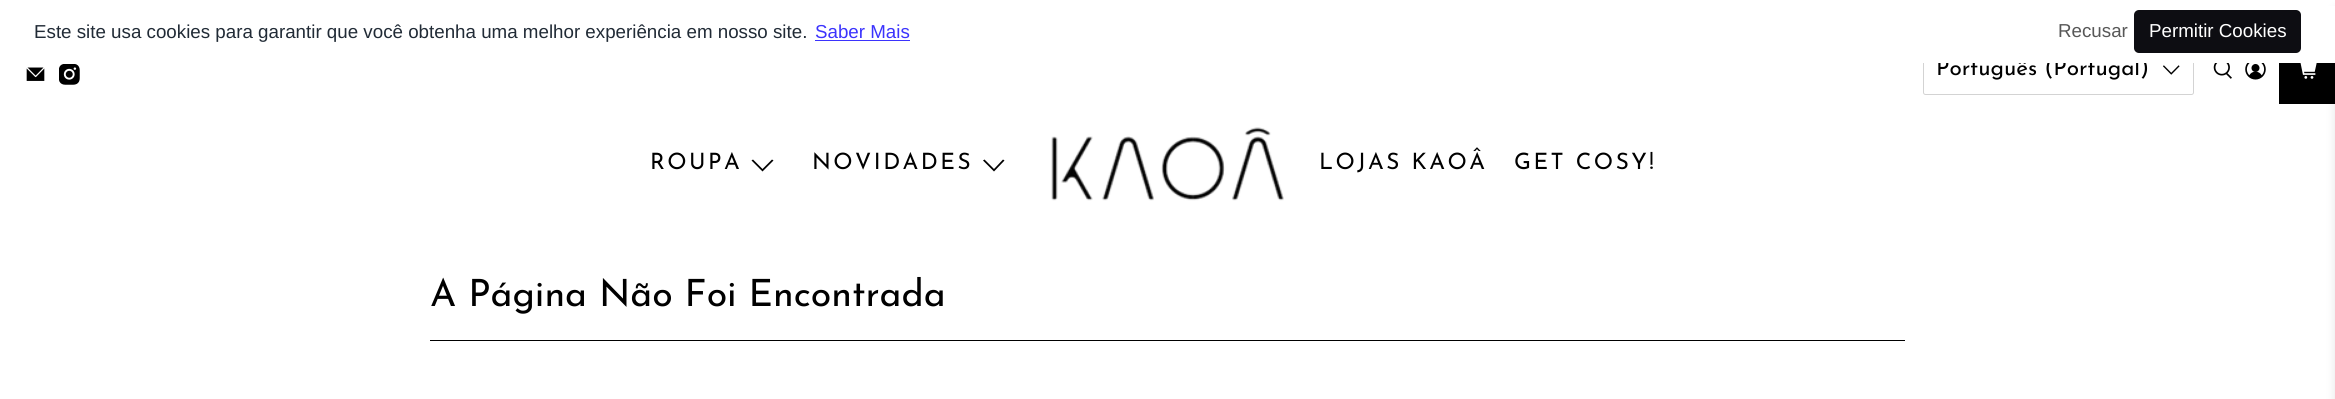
import math
import cairo



def draw_spaced(context, x, y, s, letter, word):
    context.move_to(x, y)
    for ch in s:
        context.show_text(ch)
        context.rel_move_to(letter + word * (ch == ' '), 0)


def rounded_rect(context, x, y, w, h, r):
    context.new_sub_path()
    for i, (u, v) in enumerate([(x + w - r, y + h - r), (x + r, y + h - r), (x + r, y + r), (x + w - r, y + r)]):
        context.arc(u, v, r, i * math.pi / 2, (i + 1) * math.pi / 2)
    context.close_path()


def draw_shadow(context, x, y, w, h, r, blur, alpha):
    context.push_group_with_content(cairo.Content.ALPHA)
    context.set_operator(cairo.Operator.SOURCE)
    for i in range(15, -16, -2):
        e = blur * i / 6
        if min(w, h) + 2 * e > 0:
            context.set_source_rgba(0, 0, 0, alpha * math.erfc((i - 1) / 8.5) / 2)
            rounded_rect(context, x - e, y - e, w + 2 * e, h + 2 * e, max(0, min(r + e + blur * .6, min(w, h) / 2 + e)))
            context.fill()
    context.mask(context.pop_group())


def draw_image(context, path, x, y, w, h):
    context.save()
    context.set_source_surface(cairo.ImageSurface.create_from_png(path), x, y)
    context.rectangle(x, y, w, h)
    context.fill()
    context.restore()


def draw(context):
    context.set_source_rgb(1, 1, 1)
    context.paint()
    context.set_source_rgb(59 / 255, 51 / 255, 253 / 255)
    context.rectangle(815, 40, 95, 1)
    context.fill()
    context.set_source_rgb(0, 0, 0)
    context.rectangle(2279, 63, 56, 41)
    context.fill()
    context.set_source_rgb(10 / 255, 10 / 255, 10 / 255)
    draw_shadow(context, 2335, 10, 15, 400, 0, 5, 0.1)
    draw_image(context, "images/1.png", 26, 67, 19, 14)
    draw_image(context, "images/2.png", 59, 64, 21, 21)
    rounded_rect(context, 1923.5, 45.5, 270, 49, 2)
    context.set_source_rgb(211 / 255, 211 / 255, 211 / 255)
    context.set_line_width(1)
    context.stroke()
    draw_image(context, "images/3.png", 2163, 65, 17, 10)
    draw_image(context, "images/4.png", 2213, 63, 19, 16)
    draw_image(context, "images/5.png", 2245, 63, 21, 17)
    draw_image(context, "images/6.png", 2300, 63, 17, 16)
    context.set_source_rgb(0, 0, 0)
    context.new_path()
    context.move_to(762.5, 171.5)
    context.line_to(751.5, 160.5)
    context.line_to(753, 159.5)
    context.line_to(762.5, 169)
    context.line_to(772, 159.5)
    context.line_to(773.5, 160.5)
    context.close_path()
    context.fill()
    context.new_path()
    context.move_to(994, 171.5)
    context.line_to(983, 160.5)
    context.line_to(984.5, 159.5)
    context.line_to(994, 169)
    context.line_to(1003, 159.5)
    context.line_to(1004.5, 160.5)
    context.close_path()
    context.fill()
    draw_image(context, "images/7.png", 1051, 127, 233, 74)
    context.rectangle(430, 340, 1475, 1)
    context.fill()
    context.select_font_face("Liberation Sans")
    context.set_font_size(18.75)
    context.set_source_rgb(33 / 255, 43 / 255, 54 / 255)
    context.move_to(34, 38)
    context.show_text("Este site usa cookies para garantir que você obtenha uma melhor experiência em nosso site.")
    context.set_source_rgb(59 / 255, 51 / 255, 253 / 255)
    context.move_to(815, 38)
    context.show_text("Saber Mais")
    context.select_font_face("Josefin Sans Thin")
    context.set_font_size(22.5)
    context.set_source_rgb(0, 0, 0)
    context.move_to(1936, 75)
    context.show_text("Português (Portugal)")
    context.set_source_rgb(1, 1, 1)
    context.rectangle(1923, 6, 412, 57)
    context.fill()
    context.set_source_rgb(13 / 255, 13 / 255, 18 / 255)
    rounded_rect(context, 2134, 10, 167, 43, 5)
    context.fill()
    context.select_font_face("Liberation Sans")
    context.set_font_size(18.75)
    context.set_source_rgb(1, 1, 1)
    context.move_to(2149, 37)
    context.show_text("Permitir Cookies")
    context.set_source_rgb(87 / 255, 87 / 255, 87 / 255)
    context.move_to(2058, 37)
    context.show_text("Recusar")
    context.select_font_face("Josefin Sans Thin")
    context.set_font_size(22.5)
    context.set_source_rgb(0, 0, 0)
    draw_spaced(context, 650, 169, "ROUPA", 2.5, 0)
    draw_spaced(context, 812, 169, "NOVIDADES", 2.5, 0)
    draw_spaced(context, 1319, 169, "LOJAS KAOÂ", 2.5, 0)
    draw_spaced(context, 1514, 169, "GET COSY!", 2.5, 0)
    context.set_font_size(37.5)
    context.move_to(430, 306)
    context.show_text("A Página Não Foi Encontrada")


surface = cairo.ImageSurface(cairo.Format.RGB24, 2335, 399)
context = cairo.Context(surface)
options = cairo.FontOptions()
options.set_hint_metrics(cairo.HintMetrics.OFF)
options.set_hint_style(cairo.HintStyle.NONE)
context.set_font_options(options)
context.set_miter_limit(4)
draw(context)
surface.write_to_png("out.png")
